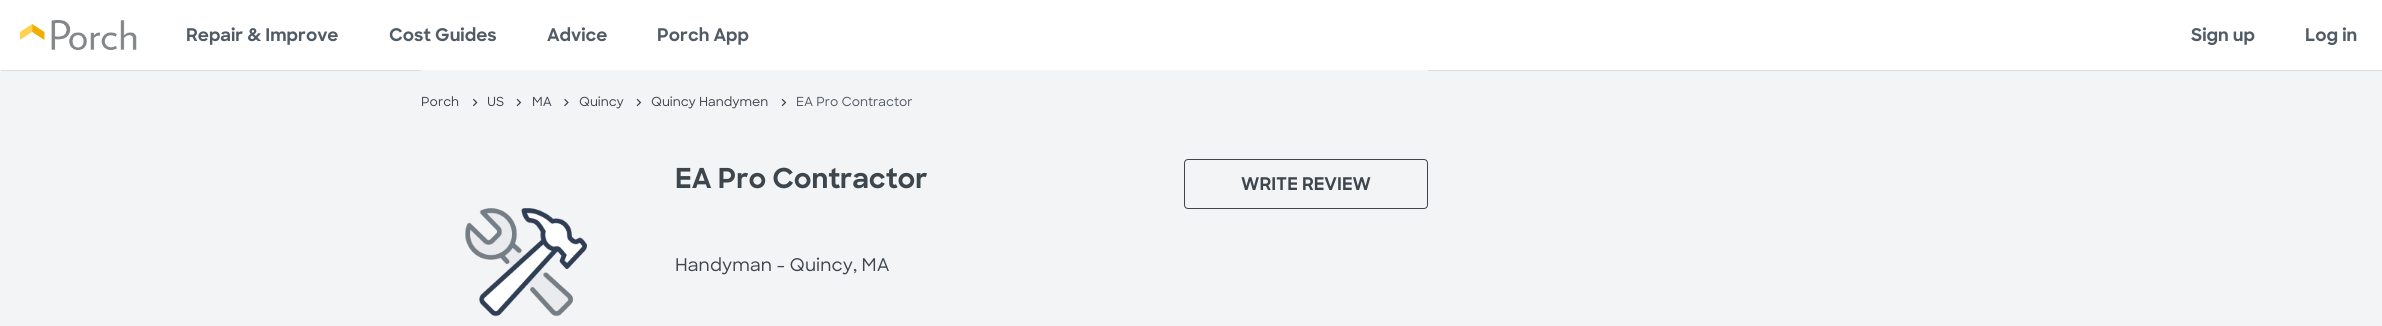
import math
import cairo



def draw_spaced(context, x, y, s, letter, word):
    context.move_to(x, y)
    for ch in s:
        context.show_text(ch)
        context.rel_move_to(letter + word * (ch == ' '), 0)


def rounded_rect(context, x, y, w, h, r):
    context.new_sub_path()
    for i, (u, v) in enumerate([(x + w - r, y + h - r), (x + r, y + h - r), (x + r, y + r), (x + w - r, y + r)]):
        context.arc(u, v, r, i * math.pi / 2, (i + 1) * math.pi / 2)
    context.close_path()


def draw_shadow(context, x, y, w, h, r, blur, alpha):
    context.push_group_with_content(cairo.Content.ALPHA)
    context.set_operator(cairo.Operator.SOURCE)
    for i in range(15, -16, -2):
        e = blur * i / 6
        if min(w, h) + 2 * e > 0:
            context.set_source_rgba(0, 0, 0, alpha * math.erfc((i - 1) / 8.5) / 2)
            rounded_rect(context, x - e, y - e, w + 2 * e, h + 2 * e, max(0, min(r + e + blur * .6, min(w, h) / 2 + e)))
            context.fill()
    context.mask(context.pop_group())


def draw_image(context, path, x, y, w, h):
    context.save()
    context.set_source_surface(cairo.ImageSurface.create_from_png(path), x, y)
    context.rectangle(x, y, w, h)
    context.fill()
    context.restore()


def draw(context):
    context.set_source_rgb(1, 1, 1)
    context.paint()
    context.set_source_rgb(243 / 255, 244 / 255, 246 / 255)
    context.rectangle(0, 70, 2382, 256)
    context.fill()
    context.save()
    context.rectangle(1, 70, 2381, 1)
    context.clip()
    context.set_source_rgb(0, 0, 0)
    draw_shadow(context, 1, 0, 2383, 70, 0, 0.5, 0.4)
    context.restore()
    draw_image(context, "images/1.png", 20, 20, 117, 30)
    context.rectangle(421, 70, 1007, 1)
    context.fill()
    draw_image(context, "images/2.png", 473, 98, 5, 9)
    draw_image(context, "images/3.png", 516, 98, 6, 9)
    draw_image(context, "images/4.png", 564, 98, 5, 9)
    draw_image(context, "images/3.png", 636, 98, 6, 9)
    draw_image(context, "images/3.png", 781, 98, 6, 9)
    rounded_rect(context, 1184.5, 159.5, 243, 49, 3.5)
    context.set_source_rgb(61 / 255, 69 / 255, 77 / 255)
    context.set_line_width(1)
    context.stroke()
    draw_image(context, "images/5.png", 465, 208, 122, 109)
    context.select_font_face("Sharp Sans", cairo.FontSlant.NORMAL, cairo.FontWeight.BOLD)
    context.set_font_size(17.5)
    context.set_source_rgb(80 / 255, 91 / 255, 102 / 255)
    context.move_to(186, 41)
    context.show_text("Repair & Improve")
    context.move_to(389, 41)
    context.show_text("Cost Guides")
    context.move_to(547, 41)
    context.show_text("Advice")
    context.move_to(657, 41)
    context.show_text("Porch App")
    context.move_to(2191, 41)
    context.show_text("Sign up")
    context.move_to(2305, 41)
    context.show_text("Log in")
    context.select_font_face("Sharp Sans Medium")
    context.set_font_size(12.5)
    context.set_source_rgb(61 / 255, 69 / 255, 77 / 255)
    context.move_to(421, 106)
    context.show_text("Porch")
    context.move_to(487, 106)
    context.show_text("US")
    context.move_to(532, 106)
    context.show_text("MA")
    context.move_to(579, 106)
    context.show_text("Quincy")
    context.move_to(651, 106)
    context.show_text("Quincy Handymen")
    context.set_source_rgb(80 / 255, 91 / 255, 102 / 255)
    context.move_to(796, 106)
    context.show_text("EA Pro Contractor")
    context.select_font_face("Sharp Sans", cairo.FontSlant.NORMAL, cairo.FontWeight.BOLD)
    context.set_font_size(27.5)
    context.set_source_rgb(61 / 255, 69 / 255, 77 / 255)
    draw_spaced(context, 675, 188, "EA Pro Contractor", -0.1, 0)
    context.select_font_face("Sharp Sans Medium")
    context.set_font_size(17.5)
    draw_spaced(context, 675, 271, "Handyman - Quincy, MA", 0.1, 0)
    context.select_font_face("Sharp Sans", cairo.FontSlant.NORMAL, cairo.FontWeight.BOLD)
    context.move_to(1241, 190)
    context.show_text("WRITE REVIEW")


surface = cairo.ImageSurface(cairo.Format.RGB24, 2382, 326)
context = cairo.Context(surface)
options = cairo.FontOptions()
options.set_hint_metrics(cairo.HintMetrics.OFF)
options.set_hint_style(cairo.HintStyle.NONE)
context.set_font_options(options)
context.set_miter_limit(4)
draw(context)
surface.write_to_png("out.png")
